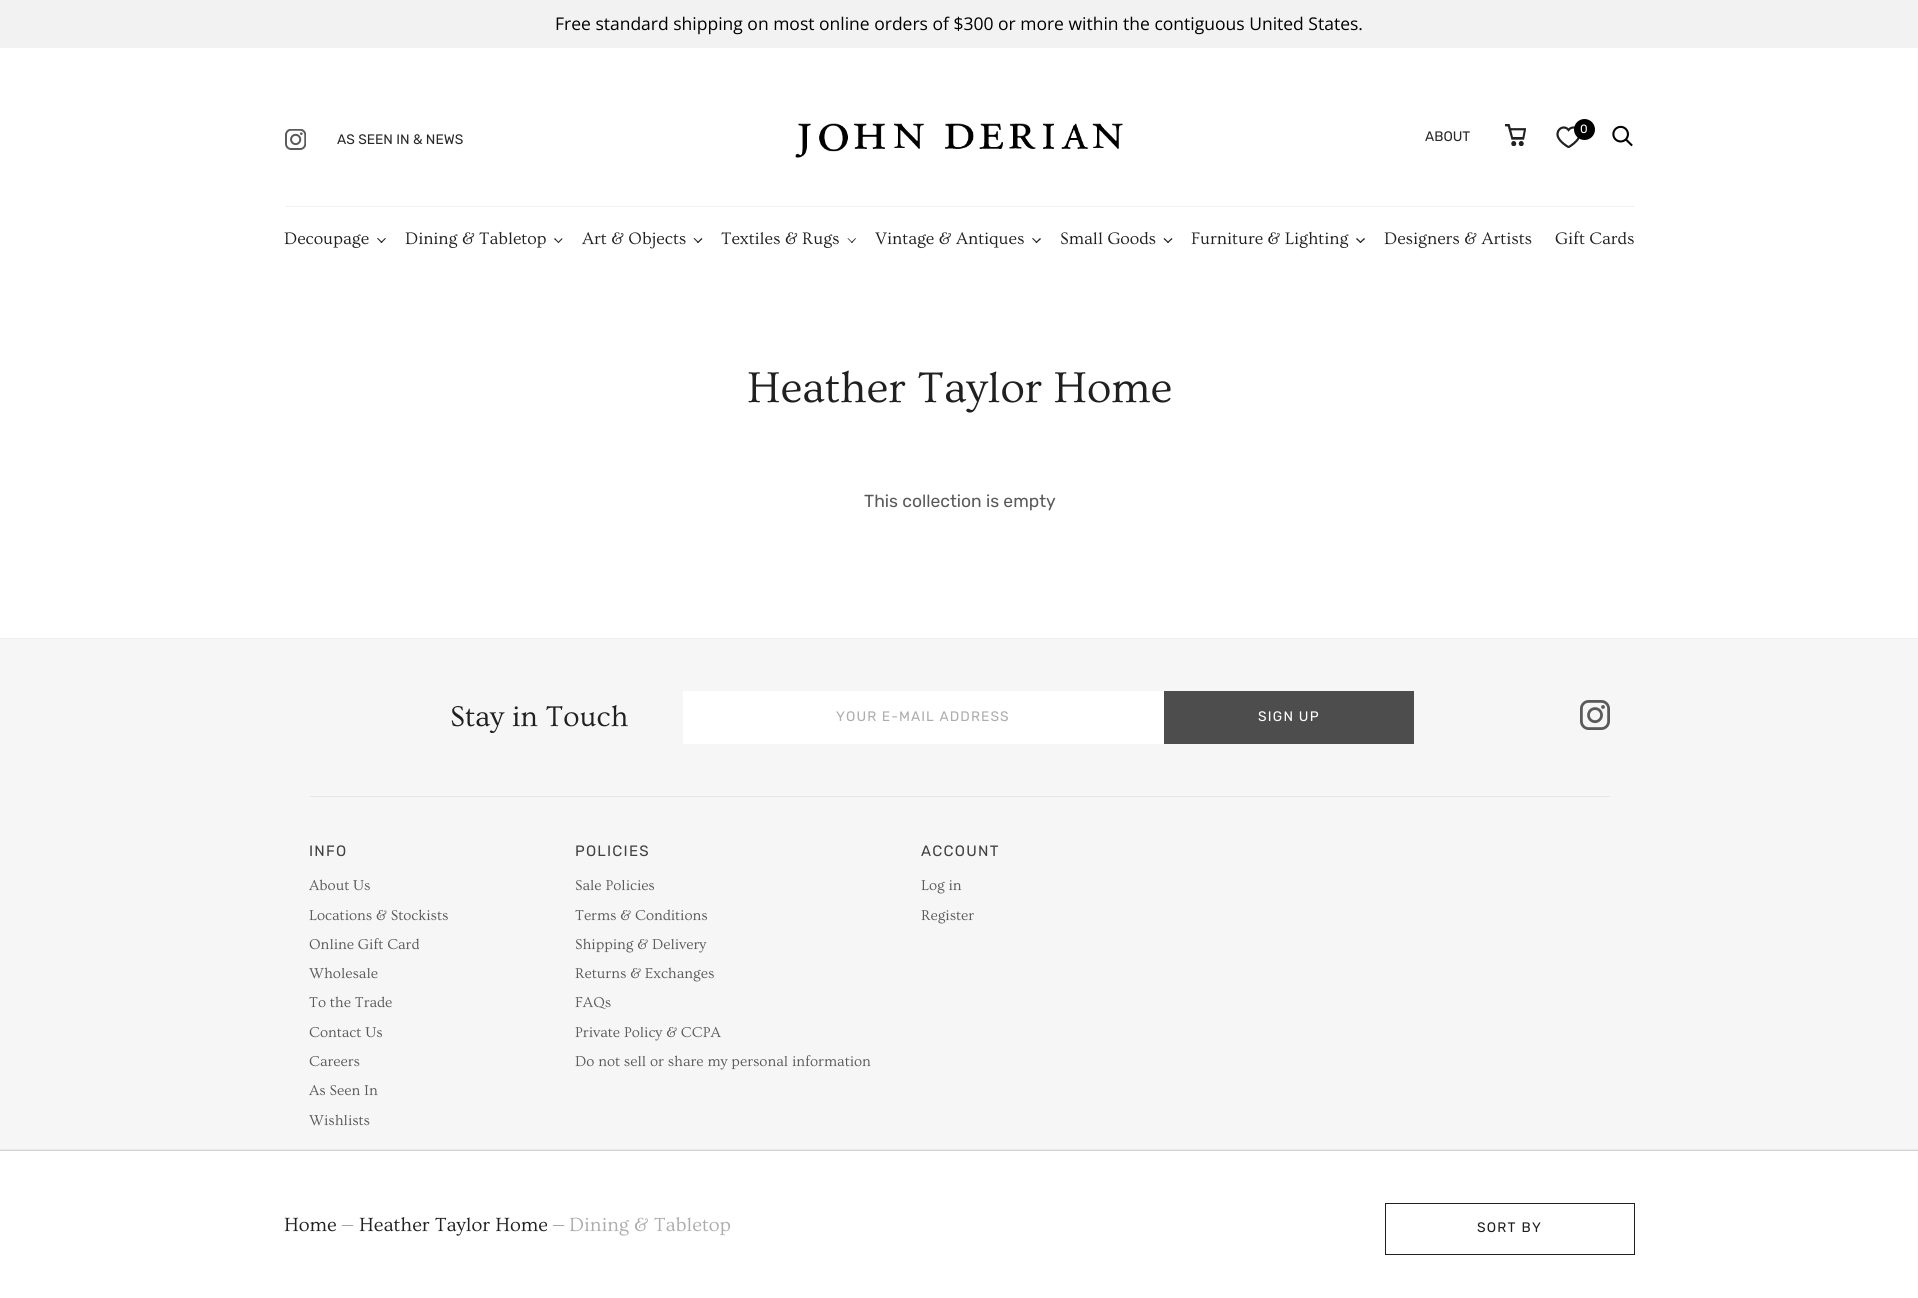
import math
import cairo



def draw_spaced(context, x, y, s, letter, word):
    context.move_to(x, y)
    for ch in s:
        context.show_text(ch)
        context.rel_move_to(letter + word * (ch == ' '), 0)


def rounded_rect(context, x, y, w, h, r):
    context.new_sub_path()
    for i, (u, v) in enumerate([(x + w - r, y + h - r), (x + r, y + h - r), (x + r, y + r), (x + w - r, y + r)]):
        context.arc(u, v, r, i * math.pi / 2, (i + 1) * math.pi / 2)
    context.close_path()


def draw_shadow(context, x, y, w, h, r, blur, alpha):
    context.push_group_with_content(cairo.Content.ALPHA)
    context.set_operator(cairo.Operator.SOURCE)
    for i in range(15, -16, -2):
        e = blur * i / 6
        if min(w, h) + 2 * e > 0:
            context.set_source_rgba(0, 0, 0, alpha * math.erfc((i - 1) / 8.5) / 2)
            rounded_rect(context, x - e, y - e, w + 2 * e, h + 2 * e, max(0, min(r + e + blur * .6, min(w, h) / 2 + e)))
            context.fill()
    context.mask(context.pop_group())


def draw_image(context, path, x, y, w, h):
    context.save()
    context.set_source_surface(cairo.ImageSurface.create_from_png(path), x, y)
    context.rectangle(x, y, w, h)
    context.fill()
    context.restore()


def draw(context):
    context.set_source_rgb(1, 1, 1)
    context.paint()
    context.set_source_rgb(242 / 255, 242 / 255, 242 / 255)
    context.rectangle(0, 0, 1918, 48)
    context.fill()
    context.rectangle(285, 206, 1350, 1)
    context.fill()
    draw_image(context, "images/1.png", 285, 129, 21, 21)
    draw_image(context, "images/2.png", 795, 123, 328, 35)
    draw_image(context, "images/3.png", 1505, 124, 21, 22)
    draw_image(context, "images/4.png", 1556, 126, 24, 23)
    context.set_source_rgb(0, 0, 0)
    context.arc(1584.5, 129.5, 10.5, 0, 2 * math.pi)
    context.fill()
    draw_image(context, "images/5.png", 1612, 125, 21, 22)
    context.set_source_rgb(32 / 255, 32 / 255, 32 / 255)
    context.new_path()
    context.move_to(380.5, 242.5)
    context.line_to(385, 238)
    context.line_to(386, 238.5)
    context.line_to(381.5, 243)
    context.close_path()
    context.fill()
    context.new_path()
    context.move_to(377, 238.5)
    context.line_to(378, 238)
    context.line_to(382.5, 242.5)
    context.line_to(381.5, 243)
    context.close_path()
    context.fill()
    context.new_path()
    context.move_to(557.5, 242.5)
    context.line_to(562, 238)
    context.line_to(562.5, 239)
    context.line_to(558.5, 243)
    context.close_path()
    context.fill()
    context.new_path()
    context.move_to(554, 239)
    context.line_to(555, 238)
    context.line_to(559, 242.5)
    context.line_to(558.5, 243)
    context.close_path()
    context.fill()
    context.new_path()
    context.move_to(697, 242.5)
    context.line_to(701.5, 238)
    context.line_to(702.5, 239)
    context.line_to(698, 243)
    context.close_path()
    context.fill()
    context.new_path()
    context.move_to(693.5, 238.5)
    context.line_to(694.5, 238)
    context.line_to(699, 242.5)
    context.line_to(698, 243)
    context.close_path()
    context.fill()
    context.new_path()
    context.move_to(851, 242.5)
    context.line_to(855.5, 238)
    context.line_to(856, 238.5)
    context.line_to(852, 243)
    context.close_path()
    context.fill()
    context.new_path()
    context.move_to(847.5, 238.5)
    context.line_to(848, 238)
    context.line_to(852.5, 242.5)
    context.line_to(852, 243)
    context.close_path()
    context.fill()
    context.new_path()
    context.move_to(1035.5, 242.5)
    context.line_to(1040, 238)
    context.line_to(1041, 239)
    context.line_to(1036.5, 243)
    context.close_path()
    context.fill()
    context.new_path()
    context.move_to(1032, 238.5)
    context.line_to(1033, 238)
    context.line_to(1037.5, 242.5)
    context.line_to(1036.5, 243)
    context.close_path()
    context.fill()
    context.new_path()
    context.move_to(1167, 242.5)
    context.line_to(1171.5, 238)
    context.line_to(1172.5, 239)
    context.line_to(1168, 243)
    context.close_path()
    context.fill()
    context.new_path()
    context.move_to(1163.5, 239)
    context.line_to(1164.5, 238)
    context.line_to(1169, 242.5)
    context.line_to(1168, 243)
    context.close_path()
    context.fill()
    context.new_path()
    context.move_to(1359.5, 242.5)
    context.line_to(1364, 238)
    context.line_to(1365, 239)
    context.line_to(1360.5, 243)
    context.close_path()
    context.fill()
    context.new_path()
    context.move_to(1356, 239)
    context.line_to(1357, 238)
    context.line_to(1361.5, 242.5)
    context.line_to(1360.5, 243)
    context.close_path()
    context.fill()
    context.set_source_rgb(246 / 255, 246 / 255, 246 / 255)
    context.rectangle(0, 639, 1918, 512)
    context.fill()
    context.set_source_rgb(32 / 255, 32 / 255, 32 / 255)
    draw_shadow(context, 0, 1150, 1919, 148, 0, 0.5, 0.2)
    context.set_source_rgb(1, 1, 1)
    context.rectangle(0, 1151, 1918, 147)
    context.fill()
    context.rectangle(1385.5, 1203.5, 249, 51)
    context.set_source_rgb(32 / 255, 32 / 255, 32 / 255)
    context.set_line_width(1)
    context.stroke()
    context.set_source_rgb(240 / 255, 240 / 255, 240 / 255)
    context.rectangle(0, 638, 1918, 1)
    context.fill()
    context.set_source_rgb(1, 1, 1)
    context.rectangle(683, 691, 481, 53)
    context.fill()
    context.set_source_rgb(77 / 255, 77 / 255, 77 / 255)
    context.rectangle(1164, 691, 250, 53)
    context.fill()
    draw_image(context, "images/6.png", 1580, 700, 30, 30)
    context.set_source_rgb(230 / 255, 230 / 255, 230 / 255)
    context.rectangle(310, 796, 1300, 1)
    context.fill()
    context.select_font_face("Open Sans")
    context.set_font_size(17.5)
    context.set_source_rgb(0, 0, 0)
    context.move_to(555, 30)
    context.show_text("Free standard shipping on most online orders of $300 or more within the contiguous United States.")
    context.select_font_face("Rubik")
    context.set_font_size(13.75)
    context.set_source_rgb(41 / 255, 41 / 255, 41 / 255)
    context.move_to(337, 144)
    context.show_text("AS SEEN IN & NEWS")
    context.set_font_size(12)
    context.set_source_rgb(1, 1, 1)
    context.move_to(1580, 133)
    context.show_text("0")
    context.set_font_size(13.75)
    context.set_source_rgb(41 / 255, 41 / 255, 41 / 255)
    context.move_to(1425, 141)
    context.show_text("ABOUT")
    context.select_font_face("Ovo")
    context.set_font_size(17.5)
    context.set_source_rgb(32 / 255, 32 / 255, 32 / 255)
    context.move_to(284, 244)
    context.show_text("Decoupage")
    context.move_to(405, 244)
    context.show_text("Dining & Tabletop")
    context.move_to(582, 244)
    context.show_text("Art & Objects")
    context.move_to(721, 244)
    context.show_text("Textiles & Rugs")
    context.move_to(875, 244)
    context.show_text("Vintage & Antiques")
    context.move_to(1060, 244)
    context.show_text("Small Goods")
    context.move_to(1191, 244)
    context.show_text("Furniture & Lighting")
    context.move_to(1384, 244)
    context.show_text("Designers & Artists")
    context.move_to(1555, 244)
    context.show_text("Gift Cards")
    context.set_font_size(45)
    context.move_to(747, 402)
    context.show_text("Heather Taylor Home")
    context.select_font_face("Rubik")
    context.set_font_size(17.5)
    context.set_source_rgb(90 / 255, 90 / 255, 90 / 255)
    context.move_to(864, 507)
    context.show_text("This collection is empty")
    context.select_font_face("Ovo")
    context.set_font_size(20)
    context.set_source_rgb(32 / 255, 32 / 255, 32 / 255)
    context.move_to(284, 1231)
    context.show_text("Home")
    context.set_source_rgb(146 / 255, 146 / 255, 146 / 255)
    context.move_to(341, 1231)
    context.show_text("—")
    context.set_source_rgb(32 / 255, 32 / 255, 32 / 255)
    context.move_to(359, 1231)
    context.show_text("Heather Taylor Home")
    context.set_source_rgb(146 / 255, 146 / 255, 146 / 255)
    context.move_to(552, 1231)
    context.show_text("—")
    context.set_source_rgb(173 / 255, 173 / 255, 173 / 255)
    context.move_to(569, 1231)
    context.show_text("Dining & Tabletop")
    context.select_font_face("Rubik")
    context.set_font_size(13.75)
    context.set_source_rgb(32 / 255, 32 / 255, 32 / 255)
    draw_spaced(context, 1477, 1232, "SORT BY", 1.25, 0)
    context.select_font_face("Ovo")
    context.set_font_size(30)
    context.move_to(450, 726)
    context.show_text("Stay in Touch")
    context.select_font_face("Rubik")
    context.set_font_size(13.75)
    context.set_source_rgb(173 / 255, 173 / 255, 173 / 255)
    draw_spaced(context, 836, 721, "YOUR E-MAIL ADDRESS", 1.1, 0)
    context.set_source_rgb(1, 1, 1)
    draw_spaced(context, 1258, 721, "SIGN UP", 1.25, 0)
    context.set_font_size(15)
    context.set_source_rgb(65 / 255, 65 / 255, 65 / 255)
    draw_spaced(context, 309, 856, "INFO", 1.25, 0)
    context.select_font_face("Ovo")
    context.set_source_rgb(90 / 255, 90 / 255, 90 / 255)
    context.move_to(309, 890)
    context.show_text("About Us")
    context.move_to(309, 920)
    context.show_text("Locations & Stockists")
    context.move_to(309, 949)
    context.show_text("Online Gift Card")
    context.move_to(309, 978)
    context.show_text("Wholesale")
    context.move_to(309, 1007)
    context.show_text("To the Trade")
    context.move_to(309, 1037)
    context.show_text("Contact Us")
    context.move_to(309, 1066)
    context.show_text("Careers")
    context.move_to(309, 1095)
    context.show_text("As Seen In")
    context.move_to(309, 1125)
    context.show_text("Wishlists")
    context.select_font_face("Rubik")
    context.set_source_rgb(65 / 255, 65 / 255, 65 / 255)
    draw_spaced(context, 575, 856, "POLICIES", 1.25, 0)
    context.select_font_face("Ovo")
    context.set_source_rgb(90 / 255, 90 / 255, 90 / 255)
    context.move_to(575, 890)
    context.show_text("Sale Policies")
    context.move_to(575, 920)
    context.show_text("Terms & Conditions")
    context.move_to(575, 949)
    context.show_text("Shipping & Delivery")
    context.move_to(575, 978)
    context.show_text("Returns & Exchanges")
    context.move_to(575, 1007)
    context.show_text("FAQs")
    context.move_to(575, 1037)
    context.show_text("Private Policy & CCPA")
    context.move_to(575, 1066)
    context.show_text("Do not sell or share my personal information")
    context.select_font_face("Rubik")
    context.set_source_rgb(65 / 255, 65 / 255, 65 / 255)
    draw_spaced(context, 921, 856, "ACCOUNT", 1.25, 0)
    context.select_font_face("Ovo")
    context.set_source_rgb(90 / 255, 90 / 255, 90 / 255)
    context.move_to(921, 890)
    context.show_text("Log in")
    context.move_to(921, 920)
    context.show_text("Register")


surface = cairo.ImageSurface(cairo.Format.RGB24, 1918, 1298)
context = cairo.Context(surface)
options = cairo.FontOptions()
options.set_hint_metrics(cairo.HintMetrics.OFF)
options.set_hint_style(cairo.HintStyle.NONE)
context.set_font_options(options)
context.set_miter_limit(4)
draw(context)
surface.write_to_png("out.png")
